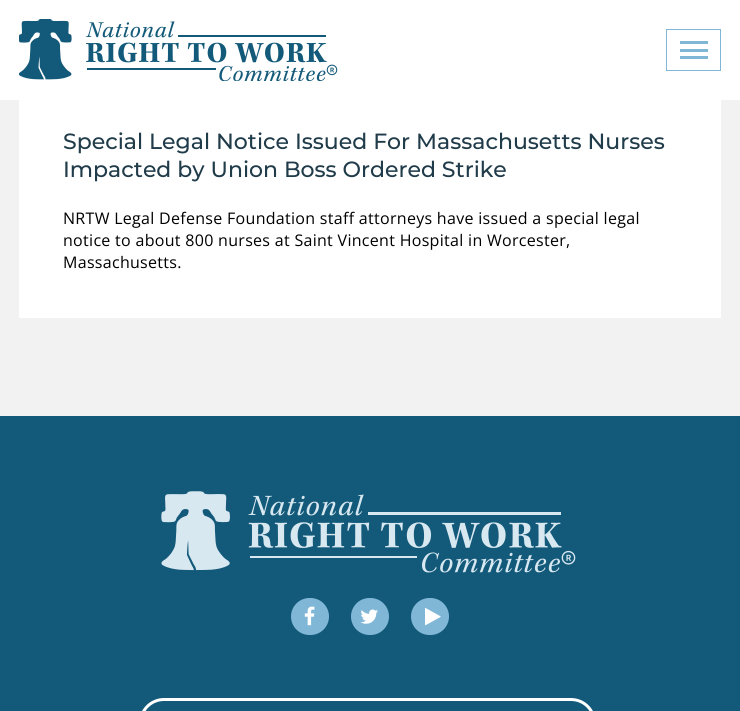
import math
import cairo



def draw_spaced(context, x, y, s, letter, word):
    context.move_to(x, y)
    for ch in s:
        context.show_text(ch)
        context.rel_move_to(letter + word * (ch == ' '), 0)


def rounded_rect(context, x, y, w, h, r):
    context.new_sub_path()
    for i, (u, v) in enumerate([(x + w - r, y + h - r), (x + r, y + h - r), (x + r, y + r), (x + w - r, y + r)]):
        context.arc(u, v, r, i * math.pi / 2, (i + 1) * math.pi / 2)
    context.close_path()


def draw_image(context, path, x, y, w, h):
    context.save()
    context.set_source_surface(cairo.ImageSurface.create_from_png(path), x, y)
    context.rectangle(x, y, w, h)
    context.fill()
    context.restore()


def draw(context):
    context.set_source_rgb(242 / 255, 242 / 255, 242 / 255)
    context.paint()
    context.set_source_rgb(1, 1, 1)
    context.rectangle(0, 0, 740, 100)
    context.fill()
    draw_image(context, "images/1.png", 19, 19, 319, 62)
    context.rectangle(666.5, 29.5, 54, 41)
    context.set_source_rgb(128 / 255, 183 / 255, 215 / 255)
    context.set_line_width(1)
    context.stroke()
    context.rectangle(680, 41, 28, 3)
    context.fill()
    context.rectangle(680, 49, 28, 3)
    context.fill()
    context.rectangle(680, 56, 28, 3)
    context.fill()
    context.set_source_rgb(1, 1, 1)
    context.rectangle(19, 100, 702, 218)
    context.fill()
    context.set_source_rgb(19 / 255, 89 / 255, 121 / 255)
    context.rectangle(0, 416, 740, 295)
    context.fill()
    draw_image(context, "images/2.png", 161, 491, 415, 82)
    context.set_source_rgb(128 / 255, 183 / 255, 215 / 255)
    rounded_rect(context, 291, 598, 38, 37, 18.5)
    context.fill()
    draw_image(context, "images/3.png", 304, 606, 11, 20)
    rounded_rect(context, 351, 598, 38, 37, 18.5)
    context.fill()
    draw_image(context, "images/4.png", 360, 609, 18, 15)
    rounded_rect(context, 411, 598, 38, 37, 18.5)
    context.fill()
    draw_image(context, "images/5.png", 425, 608, 16, 18)
    rounded_rect(context, 140.5, 699.5, 454, 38, 23.5)
    context.set_source_rgb(1, 1, 1)
    context.set_line_width(3)
    context.stroke()
    context.select_font_face("Montserrat Medium")
    context.set_font_size(22)
    context.set_source_rgb(32 / 255, 59 / 255, 73 / 255)
    context.move_to(63, 149)
    context.show_text("Special Legal Notice Issued For Massachusetts Nurses")
    context.move_to(63, 177)
    context.show_text("Impacted by Union Boss Ordered Strike")
    context.select_font_face("Open Sans")
    context.set_font_size(16)
    context.set_source_rgb(0, 0, 0)
    draw_spaced(context, 63, 224, "NRTW Legal Defense Foundation staff attorneys have issued a special legal", 0.3, 0)
    draw_spaced(context, 63, 246, "notice to about 800 nurses at Saint Vincent Hospital in Worcester,", 0.3, 0)
    draw_spaced(context, 63, 268, "Massachusetts.", 0.3, 0)


surface = cairo.ImageSurface(cairo.Format.RGB24, 740, 711)
context = cairo.Context(surface)
options = cairo.FontOptions()
options.set_hint_metrics(cairo.HintMetrics.OFF)
options.set_hint_style(cairo.HintStyle.NONE)
context.set_font_options(options)
context.set_miter_limit(4)
draw(context)
surface.write_to_png("out.png")
